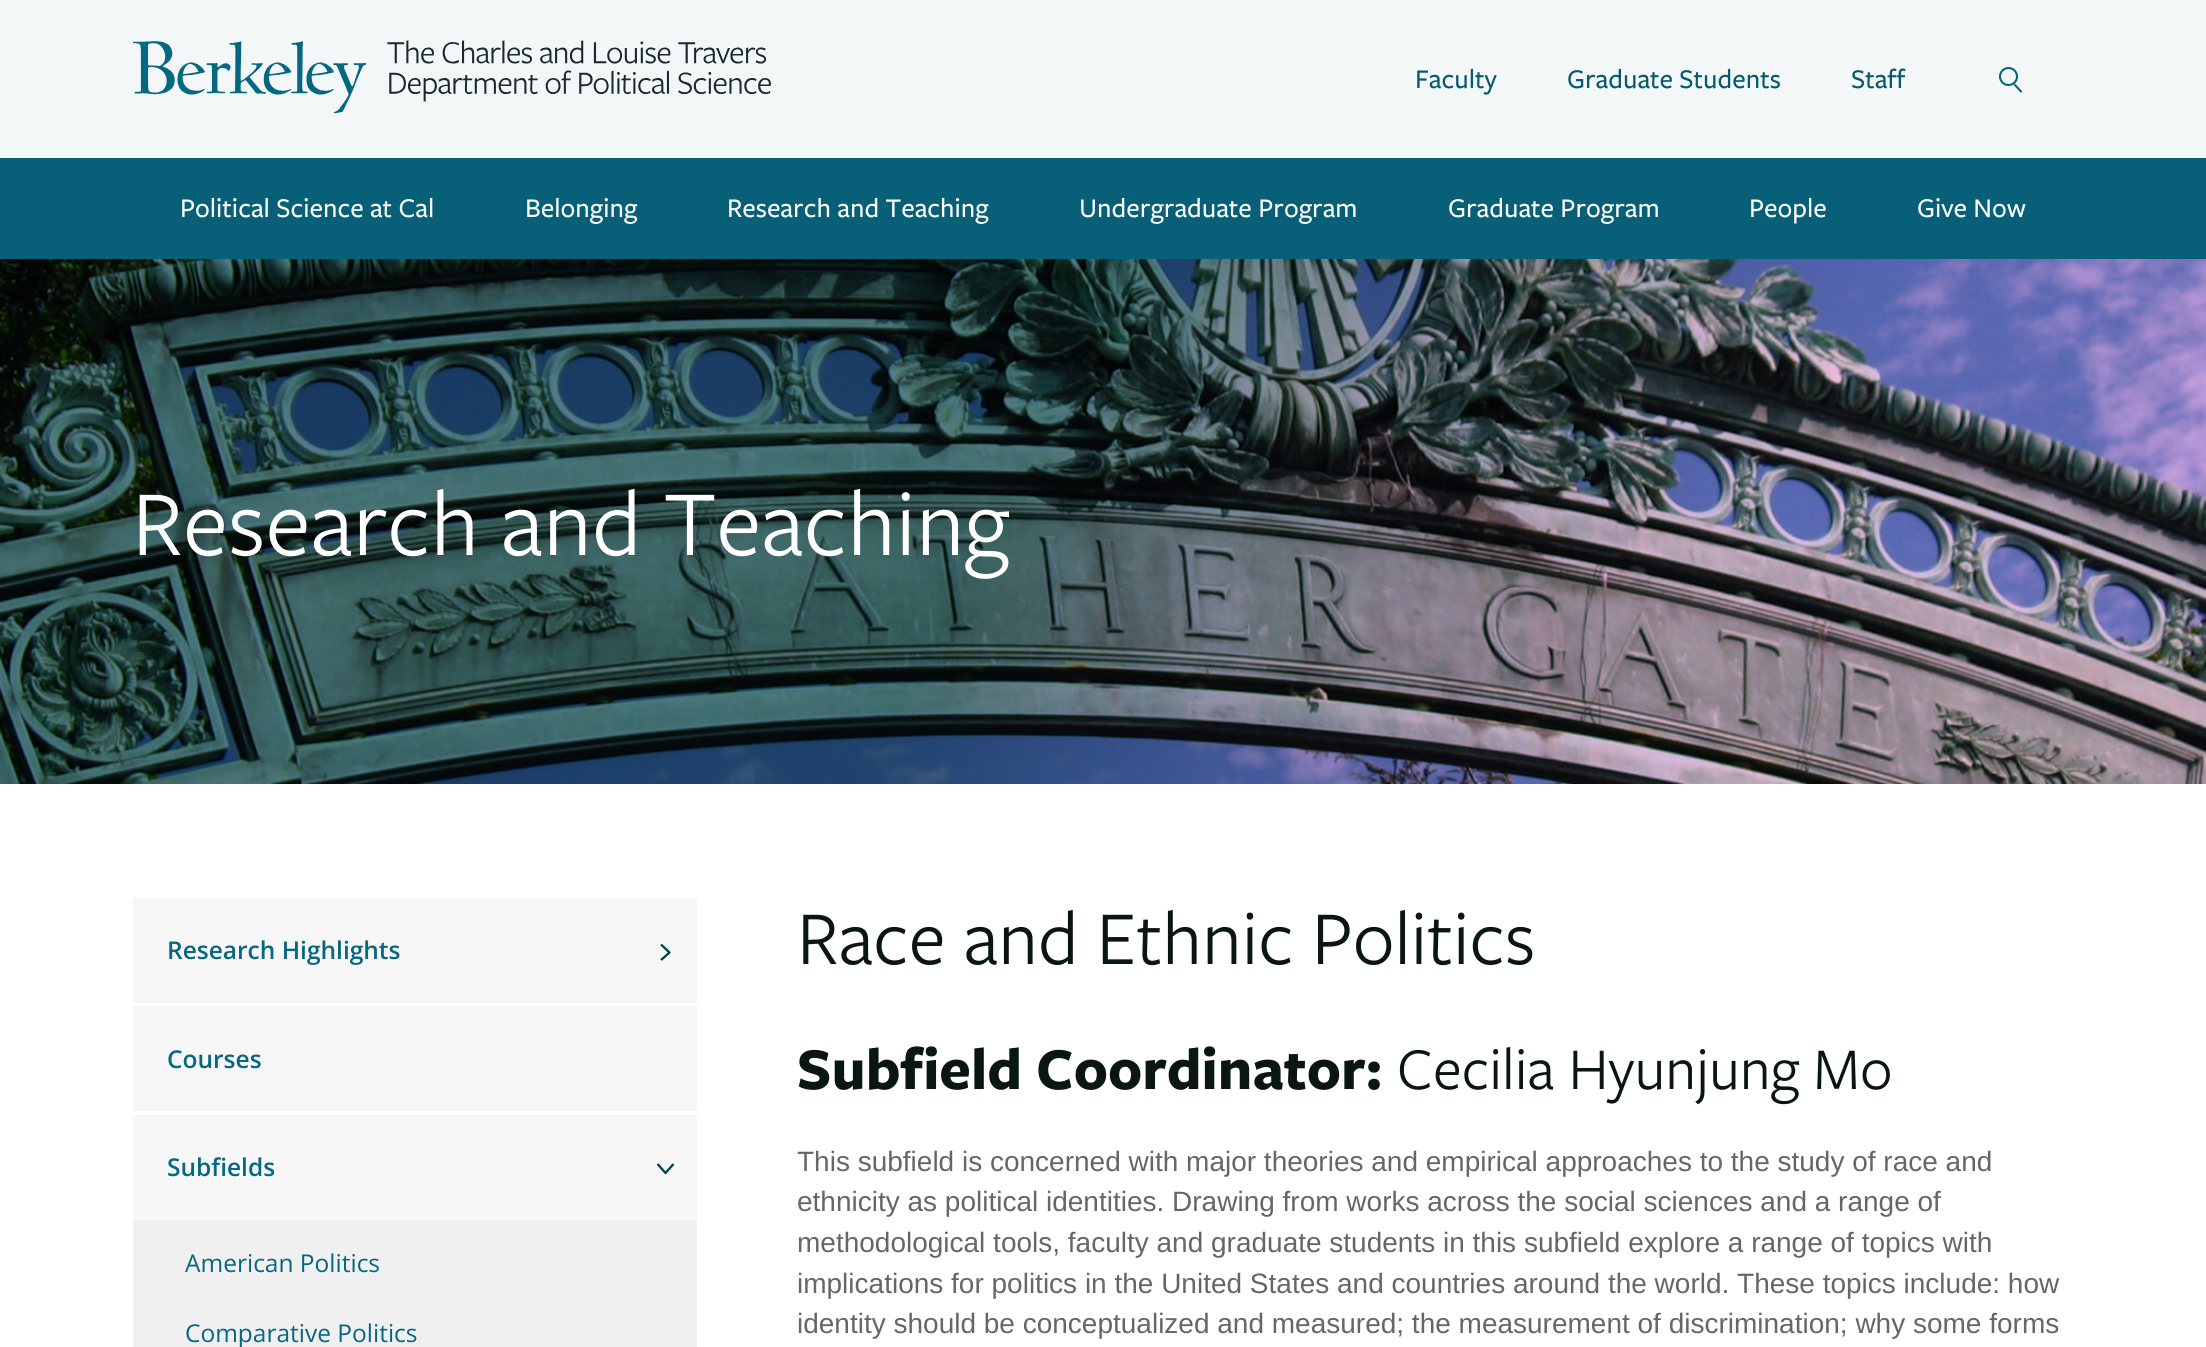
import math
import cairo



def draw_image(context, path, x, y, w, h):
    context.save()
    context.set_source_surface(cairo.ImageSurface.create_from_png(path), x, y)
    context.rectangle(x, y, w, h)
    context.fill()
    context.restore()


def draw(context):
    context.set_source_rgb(1, 1, 1)
    context.paint()
    context.set_source_rgb(243 / 255, 247 / 255, 248 / 255)
    context.rectangle(0, 0, 2206, 158)
    context.fill()
    draw_image(context, "images/1.png", 133, 40, 638, 74)
    context.arc(2008.5, 76.5, 8.5, 0, 2 * math.pi)
    context.set_source_rgb(6 / 255, 103 / 255, 129 / 255)
    context.set_line_width(2.1)
    context.stroke()
    context.new_path()
    context.move_to(2015, 85)
    context.line_to(2021, 91.5)
    context.set_line_cap(cairo.LineCap.ROUND)
    context.stroke()
    context.set_source_rgb(8 / 255, 96 / 255, 120 / 255)
    context.rectangle(0, 158, 2206, 101)
    context.fill()
    draw_image(context, "images/2.png", 0, 259, 2206, 525)
    context.set_source_rgb(246 / 255, 246 / 255, 246 / 255)
    context.rectangle(133, 898, 564, 105)
    context.fill()
    context.new_path()
    context.move_to(661, 944.5)
    context.line_to(669.5, 952.5)
    context.line_to(661, 960)
    context.set_source_rgb(0, 66 / 255, 81 / 255)
    context.set_line_width(2.3)
    context.set_line_cap(cairo.LineCap.BUTT)
    context.set_line_join(cairo.LineJoin.ROUND)
    context.stroke()
    context.set_source_rgb(246 / 255, 246 / 255, 246 / 255)
    context.rectangle(133, 1006, 564, 105)
    context.fill()
    context.rectangle(133, 1115, 564, 105)
    context.fill()
    context.new_path()
    context.move_to(673.5, 1164)
    context.line_to(665.5, 1173)
    context.line_to(657.5, 1164)
    context.set_source_rgb(0, 66 / 255, 81 / 255)
    context.stroke()
    context.set_source_rgb(240 / 255, 240 / 255, 240 / 255)
    context.rectangle(133, 1220, 564, 127)
    context.fill()
    context.select_font_face("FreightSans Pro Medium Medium")
    context.set_font_size(28)
    context.set_source_rgb(6 / 255, 89 / 255, 111 / 255)
    context.move_to(1415, 88)
    context.show_text("Faculty")
    context.move_to(1567, 88)
    context.show_text("Graduate Students")
    context.move_to(1851, 88)
    context.show_text("Staff")
    context.set_source_rgb(1, 1, 1)
    context.move_to(180, 217)
    context.show_text("Political Science at Cal")
    context.move_to(525, 217)
    context.show_text("Belonging")
    context.move_to(727, 217)
    context.show_text("Research and Teaching")
    context.move_to(1079, 217)
    context.show_text("Undergraduate Program")
    context.move_to(1448, 217)
    context.show_text("Graduate Program")
    context.move_to(1749, 217)
    context.show_text("People")
    context.move_to(1917, 217)
    context.show_text("Give Now")
    context.select_font_face("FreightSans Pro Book")
    context.set_font_size(96.25)
    context.move_to(132, 555)
    context.show_text("Research and Teaching")
    context.select_font_face("Open Sans SemiBold")
    context.set_font_size(24.5)
    context.set_source_rgb(6 / 255, 103 / 255, 129 / 255)
    context.move_to(167, 959)
    context.show_text("Research Highlights")
    context.move_to(167, 1068)
    context.show_text("Courses")
    context.move_to(167, 1176)
    context.show_text("Subfields")
    context.select_font_face("Open Sans")
    context.move_to(185, 1272)
    context.show_text("American Politics")
    context.move_to(185, 1342)
    context.show_text("Comparative Politics")
    context.select_font_face("FreightSans Pro Book")
    context.set_font_size(78.75)
    context.set_source_rgb(10 / 255, 22 / 255, 18 / 255)
    context.move_to(797, 964)
    context.show_text("Race and Ethnic Politics")
    context.select_font_face("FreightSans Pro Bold", cairo.FontSlant.NORMAL, cairo.FontWeight.BOLD)
    context.set_font_size(61.25)
    context.move_to(797, 1089)
    context.show_text("Subfield Coordinator:")
    context.select_font_face("FreightSans Pro Book")
    context.move_to(1397, 1089)
    context.show_text("Cecilia Hyunjung Mo")
    context.select_font_face("Liberation Sans")
    context.set_font_size(28)
    context.set_source_rgb(102 / 255, 102 / 255, 102 / 255)
    context.move_to(797, 1171)
    context.show_text("This subfield is concerned with major theories and empirical approaches to the study of race and")
    context.move_to(797, 1211)
    context.show_text("ethnicity as political identities. Drawing from works across the social sciences and a range of")
    context.move_to(797, 1252)
    context.show_text("methodological tools, faculty and graduate students in this subfield explore a range of topics with")
    context.move_to(797, 1293)
    context.show_text("implications for politics in the United States and countries around the world. These topics include: how")
    context.move_to(797, 1333)
    context.show_text("identity should be conceptualized and measured; the measurement of discrimination; why some forms")


surface = cairo.ImageSurface(cairo.Format.RGB24, 2206, 1347)
context = cairo.Context(surface)
options = cairo.FontOptions()
options.set_hint_metrics(cairo.HintMetrics.OFF)
options.set_hint_style(cairo.HintStyle.NONE)
context.set_font_options(options)
context.set_miter_limit(4)
draw(context)
surface.write_to_png("out.png")
